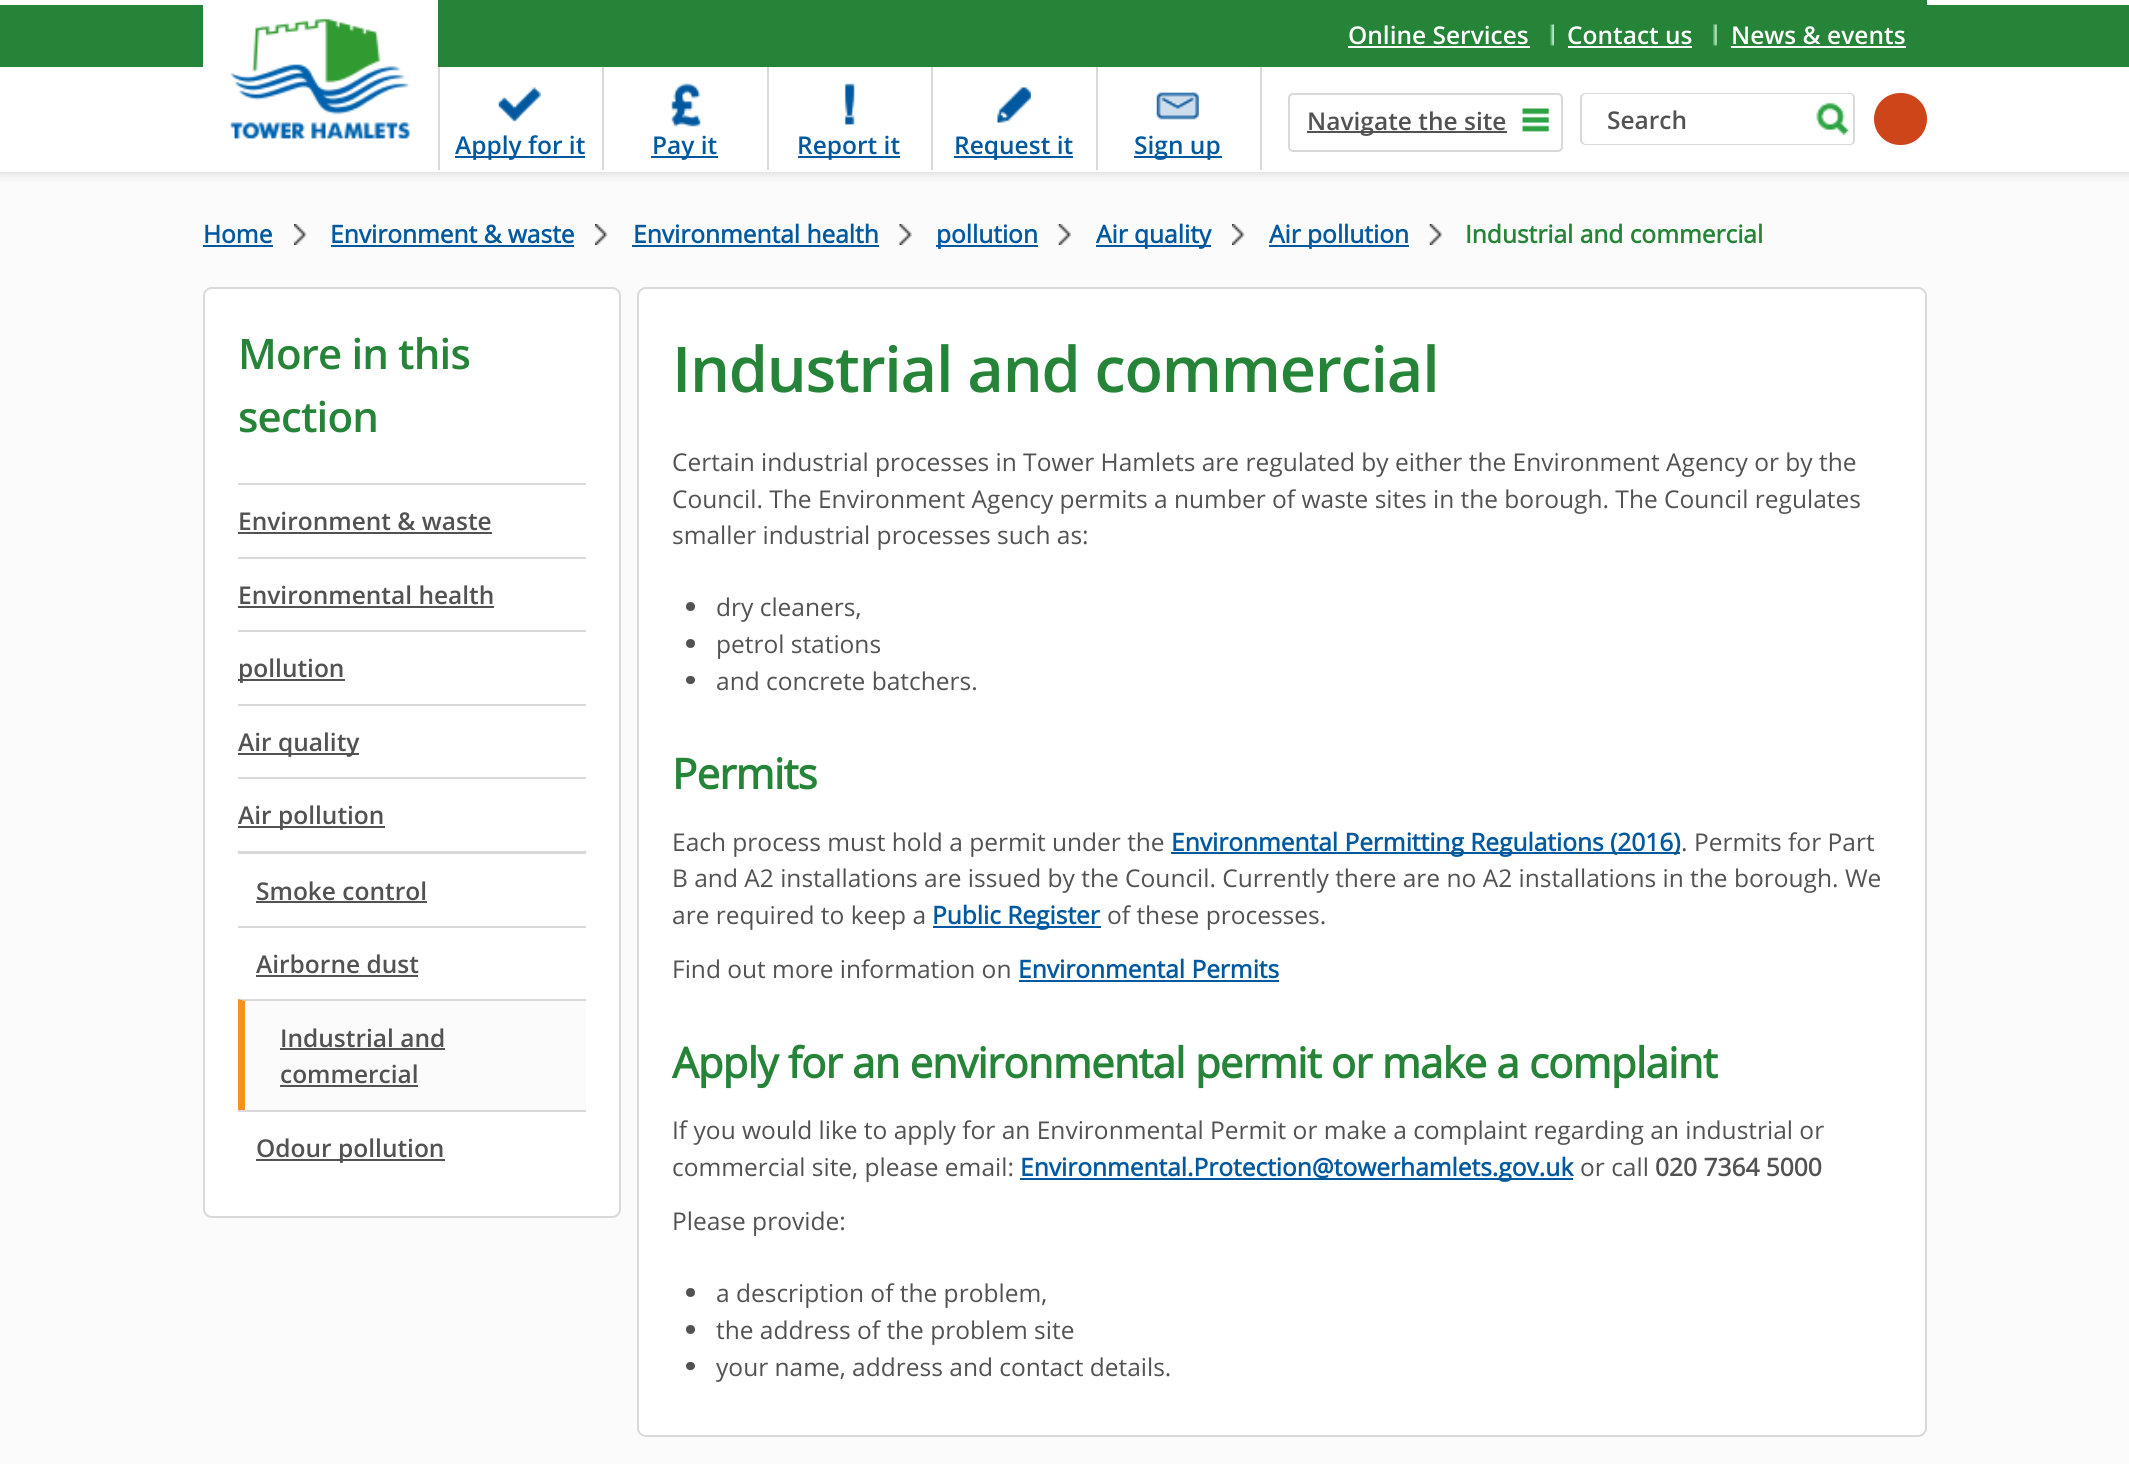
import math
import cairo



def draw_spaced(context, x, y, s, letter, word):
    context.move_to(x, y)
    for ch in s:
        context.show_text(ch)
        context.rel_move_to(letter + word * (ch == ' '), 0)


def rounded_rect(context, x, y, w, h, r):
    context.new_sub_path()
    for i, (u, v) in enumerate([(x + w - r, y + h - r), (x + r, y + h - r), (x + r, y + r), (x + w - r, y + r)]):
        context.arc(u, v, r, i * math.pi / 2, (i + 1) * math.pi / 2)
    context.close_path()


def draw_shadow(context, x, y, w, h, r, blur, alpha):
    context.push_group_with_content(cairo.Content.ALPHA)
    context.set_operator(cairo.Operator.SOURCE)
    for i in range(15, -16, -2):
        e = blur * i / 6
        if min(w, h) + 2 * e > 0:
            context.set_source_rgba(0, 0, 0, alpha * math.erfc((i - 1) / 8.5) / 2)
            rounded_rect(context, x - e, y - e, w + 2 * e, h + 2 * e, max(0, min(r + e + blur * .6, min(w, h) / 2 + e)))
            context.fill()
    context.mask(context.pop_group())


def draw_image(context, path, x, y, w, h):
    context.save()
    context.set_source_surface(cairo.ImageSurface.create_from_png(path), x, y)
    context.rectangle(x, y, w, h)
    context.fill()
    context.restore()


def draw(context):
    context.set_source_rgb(251 / 255, 251 / 255, 251 / 255)
    context.paint()
    context.set_source_rgb(209 / 255, 209 / 255, 209 / 255)
    draw_shadow(context, 0, 0, 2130, 172, 0, 6, 1)
    context.set_source_rgb(1, 1, 1)
    context.rectangle(0, 0, 2129, 5)
    context.fill()
    context.set_source_rgb(37 / 255, 132 / 255, 55 / 255)
    context.rectangle(0, 5, 2129, 62)
    context.fill()
    context.set_source_rgb(1, 1, 1)
    context.rectangle(0, 67, 2129, 105)
    context.fill()
    context.rectangle(203, 5, 235, 62)
    context.fill()
    draw_image(context, "images/1.png", 230, 18, 180, 121)
    context.set_source_rgb(37 / 255, 132 / 255, 55 / 255)
    context.rectangle(438, 0, 1489, 5)
    context.fill()
    context.set_source_rgb(1, 1, 1)
    context.rectangle(1348, 46, 182, 2)
    context.fill()
    draw_image(context, "images/2.png", 1550, 24, 4, 22)
    context.rectangle(1568, 46, 124, 2)
    context.fill()
    draw_image(context, "images/3.png", 1713, 24, 4, 22)
    context.rectangle(1731, 46, 175, 2)
    context.fill()
    draw_image(context, "images/4.png", 1522, 108, 28, 24)
    rounded_rect(context, 1289, 94, 273, 57, 4)
    context.set_source_rgb(217 / 255, 217 / 255, 217 / 255)
    context.stroke()
    context.set_source_rgb(82 / 255, 82 / 255, 82 / 255)
    context.rectangle(1307, 131, 200, 2)
    context.fill()
    context.set_source_rgb(217 / 255, 217 / 255, 217 / 255)
    context.set_fill_rule(cairo.FillRule.EVEN_ODD)
    context.new_path()
    context.move_to(1586, 93)
    context.line_to(1806, 93)
    context.line_to(1806, 145)
    context.line_to(1586, 145)
    context.curve_to(1583, 145, 1580, 143, 1580, 140)
    context.line_to(1580, 98)
    context.curve_to(1580, 95, 1583, 93, 1586, 93)
    context.close_path()
    context.move_to(1586, 94)
    context.line_to(1806, 94)
    context.line_to(1806, 144)
    context.line_to(1586, 144)
    context.curve_to(1584, 144, 1582, 142, 1582, 140)
    context.line_to(1582, 98)
    context.curve_to(1582, 96, 1584, 94, 1586, 94)
    context.close_path()
    context.fill()
    draw_image(context, "images/5.png", 1816, 102, 33, 34)
    context.new_path()
    context.move_to(1806, 93)
    context.line_to(1850, 93)
    context.curve_to(1853, 93, 1855, 95, 1855, 98)
    context.line_to(1855, 140)
    context.curve_to(1855, 143, 1853, 145, 1850, 145)
    context.line_to(1806, 145)
    context.close_path()
    context.move_to(1806, 94)
    context.line_to(1850, 94)
    context.curve_to(1852, 94, 1853, 96, 1853, 98)
    context.line_to(1853, 140)
    context.curve_to(1853, 142, 1852, 144, 1850, 144)
    context.line_to(1806, 144)
    context.close_path()
    context.fill()
    context.set_source_rgb(205 / 255, 69 / 255, 24 / 255)
    rounded_rect(context, 1874, 93, 53, 52, 26)
    context.fill()
    context.set_source_rgb(217 / 255, 217 / 255, 217 / 255)
    context.rectangle(1260, 67, 2, 103)
    context.fill()
    draw_image(context, "images/6.png", 498, 87, 43, 35)
    context.rectangle(438, 67, 2, 103)
    context.fill()
    context.set_source_rgb(0, 89 / 255, 159 / 255)
    context.rectangle(455, 156, 130, 2)
    context.fill()
    draw_image(context, "images/7.png", 671, 83, 30, 44)
    context.set_source_rgb(217 / 255, 217 / 255, 217 / 255)
    context.rectangle(602, 67, 2, 103)
    context.fill()
    context.set_source_rgb(0, 89 / 255, 159 / 255)
    context.rectangle(651, 156, 67, 2)
    context.fill()
    draw_image(context, "images/8.png", 844, 83, 11, 42)
    context.set_source_rgb(217 / 255, 217 / 255, 217 / 255)
    context.rectangle(767, 67, 2, 103)
    context.fill()
    context.set_source_rgb(0, 89 / 255, 159 / 255)
    context.rectangle(798, 156, 102, 2)
    context.fill()
    draw_image(context, "images/9.png", 997, 87, 34, 36)
    context.set_source_rgb(217 / 255, 217 / 255, 217 / 255)
    context.rectangle(931, 67, 2, 103)
    context.fill()
    context.set_source_rgb(0, 89 / 255, 159 / 255)
    context.rectangle(954, 156, 119, 2)
    context.fill()
    draw_image(context, "images/10.png", 1156, 92, 43, 28)
    context.set_source_rgb(217 / 255, 217 / 255, 217 / 255)
    context.rectangle(1096, 67, 2, 103)
    context.fill()
    context.set_source_rgb(0, 89 / 255, 159 / 255)
    context.rectangle(1134, 156, 88, 2)
    context.fill()
    draw_image(context, "images/11.png", 294, 224, 13, 21)
    context.rectangle(203, 245, 70, 2)
    context.fill()
    draw_image(context, "images/11.png", 595, 224, 13, 21)
    context.rectangle(331, 245, 243, 2)
    context.fill()
    draw_image(context, "images/12.png", 899, 224, 13, 21)
    context.rectangle(632, 245, 247, 2)
    context.fill()
    draw_image(context, "images/13.png", 1058, 224, 13, 21)
    context.rectangle(936, 245, 102, 2)
    context.fill()
    draw_image(context, "images/11.png", 1232, 224, 13, 21)
    context.rectangle(1096, 245, 115, 2)
    context.fill()
    draw_image(context, "images/14.png", 1429, 224, 13, 21)
    context.rectangle(1269, 245, 140, 2)
    context.fill()
    context.set_source_rgb(1, 1, 1)
    rounded_rect(context, 204, 288, 416, 929, 8)
    context.fill_preserve()
    context.set_source_rgb(217 / 255, 217 / 255, 217 / 255)
    context.stroke()
    context.rectangle(238, 483, 348, 2)
    context.fill()
    context.set_source_rgb(82 / 255, 82 / 255, 82 / 255)
    context.rectangle(238, 532, 254, 2)
    context.fill()
    context.set_source_rgb(217 / 255, 217 / 255, 217 / 255)
    context.rectangle(238, 557, 348, 2)
    context.fill()
    context.set_source_rgb(82 / 255, 82 / 255, 82 / 255)
    context.rectangle(238, 606, 256, 2)
    context.fill()
    context.set_source_rgb(217 / 255, 217 / 255, 217 / 255)
    context.rectangle(238, 630, 348, 2)
    context.fill()
    context.set_source_rgb(82 / 255, 82 / 255, 82 / 255)
    context.rectangle(238, 679, 107, 2)
    context.fill()
    context.set_source_rgb(217 / 255, 217 / 255, 217 / 255)
    context.rectangle(238, 704, 348, 2)
    context.fill()
    context.set_source_rgb(82 / 255, 82 / 255, 82 / 255)
    context.rectangle(238, 753, 121, 2)
    context.fill()
    context.set_source_rgb(217 / 255, 217 / 255, 217 / 255)
    context.rectangle(238, 777, 348, 2)
    context.fill()
    context.set_source_rgb(82 / 255, 82 / 255, 82 / 255)
    context.rectangle(238, 826, 147, 2)
    context.fill()
    context.set_source_rgb(217 / 255, 217 / 255, 217 / 255)
    context.rectangle(238, 851, 348, 3)
    context.fill()
    context.set_source_rgb(82 / 255, 82 / 255, 82 / 255)
    context.rectangle(256, 901, 171, 2)
    context.fill()
    context.set_source_rgb(217 / 255, 217 / 255, 217 / 255)
    context.rectangle(238, 926, 348, 2)
    context.fill()
    context.set_source_rgb(82 / 255, 82 / 255, 82 / 255)
    context.rectangle(256, 975, 162, 2)
    context.fill()
    context.set_source_rgb(251 / 255, 251 / 255, 251 / 255)
    context.rectangle(238, 999, 348, 111)
    context.fill()
    context.set_source_rgb(217 / 255, 217 / 255, 217 / 255)
    context.set_fill_rule(cairo.FillRule.WINDING)
    context.new_path()
    context.move_to(238, 999)
    context.line_to(586, 999)
    context.line_to(586, 1001)
    context.line_to(245, 1001)
    context.close_path()
    context.fill()
    context.set_source_rgb(244 / 255, 146 / 255, 29 / 255)
    context.new_path()
    context.move_to(238, 1110)
    context.line_to(238, 999)
    context.line_to(245, 1001)
    context.line_to(245, 1110)
    context.close_path()
    context.fill()
    context.set_source_rgb(82 / 255, 82 / 255, 82 / 255)
    context.rectangle(280, 1048, 165, 2)
    context.fill()
    context.rectangle(280, 1085, 138, 2)
    context.fill()
    context.set_source_rgb(217 / 255, 217 / 255, 217 / 255)
    context.rectangle(238, 1110, 348, 2)
    context.fill()
    context.set_source_rgb(82 / 255, 82 / 255, 82 / 255)
    context.rectangle(256, 1159, 189, 2)
    context.fill()
    context.set_source_rgb(1, 1, 1)
    rounded_rect(context, 638, 288, 1288, 1148, 8)
    context.fill_preserve()
    context.set_source_rgb(217 / 255, 217 / 255, 217 / 255)
    context.stroke()
    context.set_source_rgb(82 / 255, 82 / 255, 82 / 255)
    context.arc(690.5, 606.5, 4.5, 0, 2 * math.pi)
    context.fill()
    context.arc(690.5, 643.5, 4.5, 0, 2 * math.pi)
    context.fill()
    rounded_rect(context, 686, 676, 9, 8, 4)
    context.fill()
    context.set_source_rgb(0, 89 / 255, 159 / 255)
    context.rectangle(1171, 852, 509, 2)
    context.fill()
    context.rectangle(933, 926, 168, 2)
    context.fill()
    context.rectangle(1019, 980, 260, 2)
    context.fill()
    context.rectangle(1020, 1178, 553, 2)
    context.fill()
    context.set_source_rgb(82 / 255, 82 / 255, 82 / 255)
    context.arc(690.5, 1292.5, 4.5, 0, 2 * math.pi)
    context.fill()
    context.arc(690.5, 1329.5, 4.5, 0, 2 * math.pi)
    context.fill()
    rounded_rect(context, 686, 1362, 9, 8, 4)
    context.fill()
    context.select_font_face("Open Sans SemiBold")
    context.set_font_size(24.5)
    context.set_source_rgb(1, 1, 1)
    context.move_to(1348, 44)
    context.show_text("Online Services")
    context.move_to(1567, 44)
    context.show_text("Contact us")
    context.move_to(1731, 44)
    context.show_text("News & events")
    context.set_source_rgb(82 / 255, 82 / 255, 82 / 255)
    context.move_to(1307, 130)
    context.show_text("Navigate the site")
    context.move_to(1607, 129)
    context.show_text("Search")
    context.set_source_rgb(0, 89 / 255, 159 / 255)
    context.move_to(455, 154)
    context.show_text("Apply for it")
    context.move_to(652, 154)
    context.show_text("Pay it")
    context.move_to(797, 154)
    context.show_text("Report it")
    context.move_to(954, 154)
    context.show_text("Request it")
    context.move_to(1134, 154)
    context.show_text("Sign up")
    context.select_font_face("Open Sans", cairo.FontSlant.NORMAL, cairo.FontWeight.BOLD)
    context.move_to(203, 243)
    context.show_text("Home")
    context.move_to(330, 243)
    context.show_text("Environment & waste")
    context.move_to(633, 243)
    context.show_text("Environmental health")
    context.move_to(936, 243)
    context.show_text("pollution")
    context.move_to(1096, 243)
    context.show_text("Air quality")
    context.move_to(1269, 243)
    context.show_text("Air pollution")
    context.set_source_rgb(37 / 255, 132 / 255, 55 / 255)
    context.move_to(1465, 243)
    context.show_text("Industrial and commercial")
    context.select_font_face("Open Sans SemiBold")
    context.set_font_size(42)
    draw_spaced(context, 238, 369, "More in this", -0.85, 0)
    draw_spaced(context, 238, 432, "section", -0.85, 0)
    context.set_font_size(24.5)
    context.set_source_rgb(82 / 255, 82 / 255, 82 / 255)
    context.move_to(238, 530)
    context.show_text("Environment & waste")
    context.move_to(238, 604)
    context.show_text("Environmental health")
    context.move_to(238, 677)
    context.show_text("pollution")
    context.move_to(238, 751)
    context.show_text("Air quality")
    context.move_to(238, 824)
    context.show_text("Air pollution")
    context.move_to(256, 900)
    context.show_text("Smoke control")
    context.move_to(256, 973)
    context.show_text("Airborne dust")
    context.move_to(280, 1047)
    context.show_text("Industrial and")
    context.move_to(280, 1083)
    context.show_text("commercial")
    context.move_to(256, 1157)
    context.show_text("Odour pollution")
    context.set_font_size(63)
    context.set_source_rgb(37 / 255, 132 / 255, 55 / 255)
    draw_spaced(context, 672, 392, "Industrial and commercial", -1.25, 0)
    context.select_font_face("Open Sans")
    context.set_font_size(24.5)
    context.set_source_rgb(82 / 255, 82 / 255, 82 / 255)
    context.move_to(672, 471)
    context.show_text("Certain industrial processes in Tower Hamlets are regulated by either the Environment Agency or by the")
    context.move_to(672, 508)
    context.show_text("Council. The Environment Agency permits a number of waste sites in the borough. The Council regulates")
    context.move_to(672, 544)
    context.show_text("smaller industrial processes such as:")
    context.move_to(716, 616)
    context.show_text("dry cleaners,")
    context.move_to(716, 653)
    context.show_text("petrol stations")
    context.move_to(716, 690)
    context.show_text("and concrete batchers.")
    context.select_font_face("Open Sans", cairo.FontSlant.NORMAL, cairo.FontWeight.BOLD)
    context.set_font_size(42)
    context.set_source_rgb(37 / 255, 132 / 255, 55 / 255)
    draw_spaced(context, 672, 789, "Permits", -0.85, 0)
    context.select_font_face("Open Sans")
    context.set_font_size(24.5)
    context.set_source_rgb(82 / 255, 82 / 255, 82 / 255)
    context.move_to(672, 851)
    context.show_text("Each process must hold a permit under the")
    context.select_font_face("Open Sans", cairo.FontSlant.NORMAL, cairo.FontWeight.BOLD)
    context.set_source_rgb(0, 89 / 255, 159 / 255)
    context.move_to(1171, 851)
    context.show_text("Environmental Permitting Regulations (2016)")
    context.select_font_face("Open Sans")
    context.set_source_rgb(82 / 255, 82 / 255, 82 / 255)
    context.move_to(1681, 851)
    context.show_text(". Permits for Part")
    context.move_to(672, 887)
    context.show_text("B and A2 installations are issued by the Council. Currently there are no A2 installations in the borough. We")
    context.move_to(672, 924)
    context.show_text("are required to keep a")
    context.select_font_face("Open Sans", cairo.FontSlant.NORMAL, cairo.FontWeight.BOLD)
    context.set_source_rgb(0, 89 / 255, 159 / 255)
    context.move_to(932, 924)
    context.show_text("Public Register")
    context.select_font_face("Open Sans")
    context.set_source_rgb(82 / 255, 82 / 255, 82 / 255)
    context.move_to(1107, 924)
    context.show_text("of these processes.")
    context.move_to(672, 978)
    context.show_text("Find out more information on")
    context.select_font_face("Open Sans", cairo.FontSlant.NORMAL, cairo.FontWeight.BOLD)
    context.set_source_rgb(0, 89 / 255, 159 / 255)
    context.move_to(1018, 978)
    context.show_text("Environmental Permits")
    context.set_font_size(42)
    context.set_source_rgb(37 / 255, 132 / 255, 55 / 255)
    draw_spaced(context, 672, 1078, "Apply for an environmental permit or make a complaint", -0.85, 0)
    context.select_font_face("Open Sans")
    context.set_font_size(24.5)
    context.set_source_rgb(82 / 255, 82 / 255, 82 / 255)
    context.move_to(672, 1139)
    context.show_text("If you would like to apply for an Environmental Permit or make a complaint regarding an industrial or")
    context.move_to(672, 1176)
    context.show_text("commercial site, please email:")
    context.select_font_face("Open Sans", cairo.FontSlant.NORMAL, cairo.FontWeight.BOLD)
    context.set_source_rgb(0, 89 / 255, 159 / 255)
    context.move_to(1020, 1176)
    context.show_text("Environmental.Protection@towerhamlets.gov.uk")
    context.select_font_face("Open Sans")
    context.set_source_rgb(82 / 255, 82 / 255, 82 / 255)
    context.move_to(1580, 1176)
    context.show_text("or call")
    context.select_font_face("Open Sans", cairo.FontSlant.NORMAL, cairo.FontWeight.BOLD)
    context.move_to(1655, 1176)
    context.show_text("020 7364 5000")
    context.select_font_face("Open Sans")
    context.move_to(672, 1230)
    context.show_text("Please provide:")
    context.move_to(716, 1302)
    context.show_text("a description of the problem,")
    context.move_to(716, 1339)
    context.show_text("the address of the problem site")
    context.move_to(716, 1376)
    context.show_text("your name, address and contact details.")


surface = cairo.ImageSurface(cairo.Format.RGB24, 2129, 1464)
context = cairo.Context(surface)
options = cairo.FontOptions()
options.set_hint_metrics(cairo.HintMetrics.OFF)
options.set_hint_style(cairo.HintStyle.NONE)
context.set_font_options(options)
context.set_miter_limit(4)
draw(context)
surface.write_to_png("out.png")
